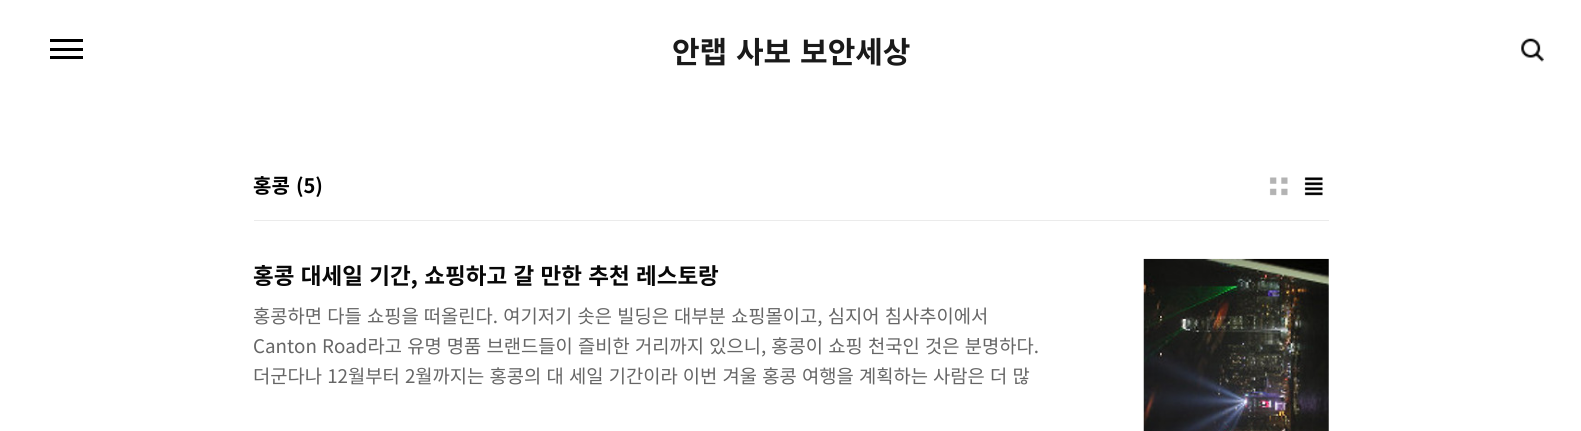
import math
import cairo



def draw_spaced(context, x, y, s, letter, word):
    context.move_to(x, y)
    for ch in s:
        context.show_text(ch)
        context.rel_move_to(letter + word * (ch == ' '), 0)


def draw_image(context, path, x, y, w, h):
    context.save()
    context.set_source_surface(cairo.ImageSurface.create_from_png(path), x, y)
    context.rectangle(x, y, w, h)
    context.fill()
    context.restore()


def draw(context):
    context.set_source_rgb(1, 1, 1)
    context.paint()
    context.set_source_rgb(0, 0, 0)
    context.rectangle(50, 39, 33, 3)
    context.fill()
    context.rectangle(50, 48, 33, 3)
    context.fill()
    context.rectangle(50, 56, 33, 3)
    context.fill()
    draw_image(context, "images/1.png", 1521, 38, 23, 24)
    context.set_source_rgb(235 / 255, 235 / 255, 235 / 255)
    context.rectangle(254, 220, 1075, 1)
    context.fill()
    draw_image(context, "images/2.png", 1269, 177, 19, 19)
    draw_image(context, "images/3.png", 1304, 177, 19, 19)
    draw_image(context, "images/4.png", 1143, 258, 186, 173)
    context.select_font_face("Noto Sans KR", cairo.FontSlant.NORMAL, cairo.FontWeight.BOLD)
    context.set_font_size(30)
    context.set_source_rgb(26 / 255, 26 / 255, 26 / 255)
    draw_spaced(context, 672, 63, "안랩 사보 보안세상", 0, 2)
    context.set_font_size(20)
    context.set_source_rgb(0, 0, 0)
    context.move_to(253, 193)
    context.show_text("홍콩")
    context.move_to(296, 193)
    context.show_text("(5)")
    context.set_font_size(22.5)
    context.set_source_rgb(8 / 255, 8 / 255, 8 / 255)
    draw_spaced(context, 253, 284, "홍콩 대세일 기간, 쇼핑하고 갈 만한 추천 레스토랑", 0, 1.25)
    context.select_font_face("Noto Sans KR")
    context.set_font_size(18.75)
    context.set_source_rgb(102 / 255, 102 / 255, 102 / 255)
    draw_spaced(context, 253, 323, "홍콩하면 다들 쇼핑을 떠올린다. 여기저기 솟은 빌딩은 대부분 쇼핑몰이고, 심지어 침사추이에서", 0, 1)
    draw_spaced(context, 253, 353, "Canton Road라고 유명 명품 브랜드들이 즐비한 거리까지 있으니, 홍콩이 쇼핑 천국인 것은 분명하다.", 0, 1)
    draw_spaced(context, 253, 383, "더군다나 12월부터 2월까지는 홍콩의 대 세일 기간이라 이번 겨울 홍콩 여행을 계획하는 사람은 더 많", 0, 1)


surface = cairo.ImageSurface(cairo.Format.RGB24, 1581, 431)
context = cairo.Context(surface)
options = cairo.FontOptions()
options.set_hint_metrics(cairo.HintMetrics.OFF)
options.set_hint_style(cairo.HintStyle.NONE)
context.set_font_options(options)
context.set_miter_limit(4)
draw(context)
surface.write_to_png("out.png")
